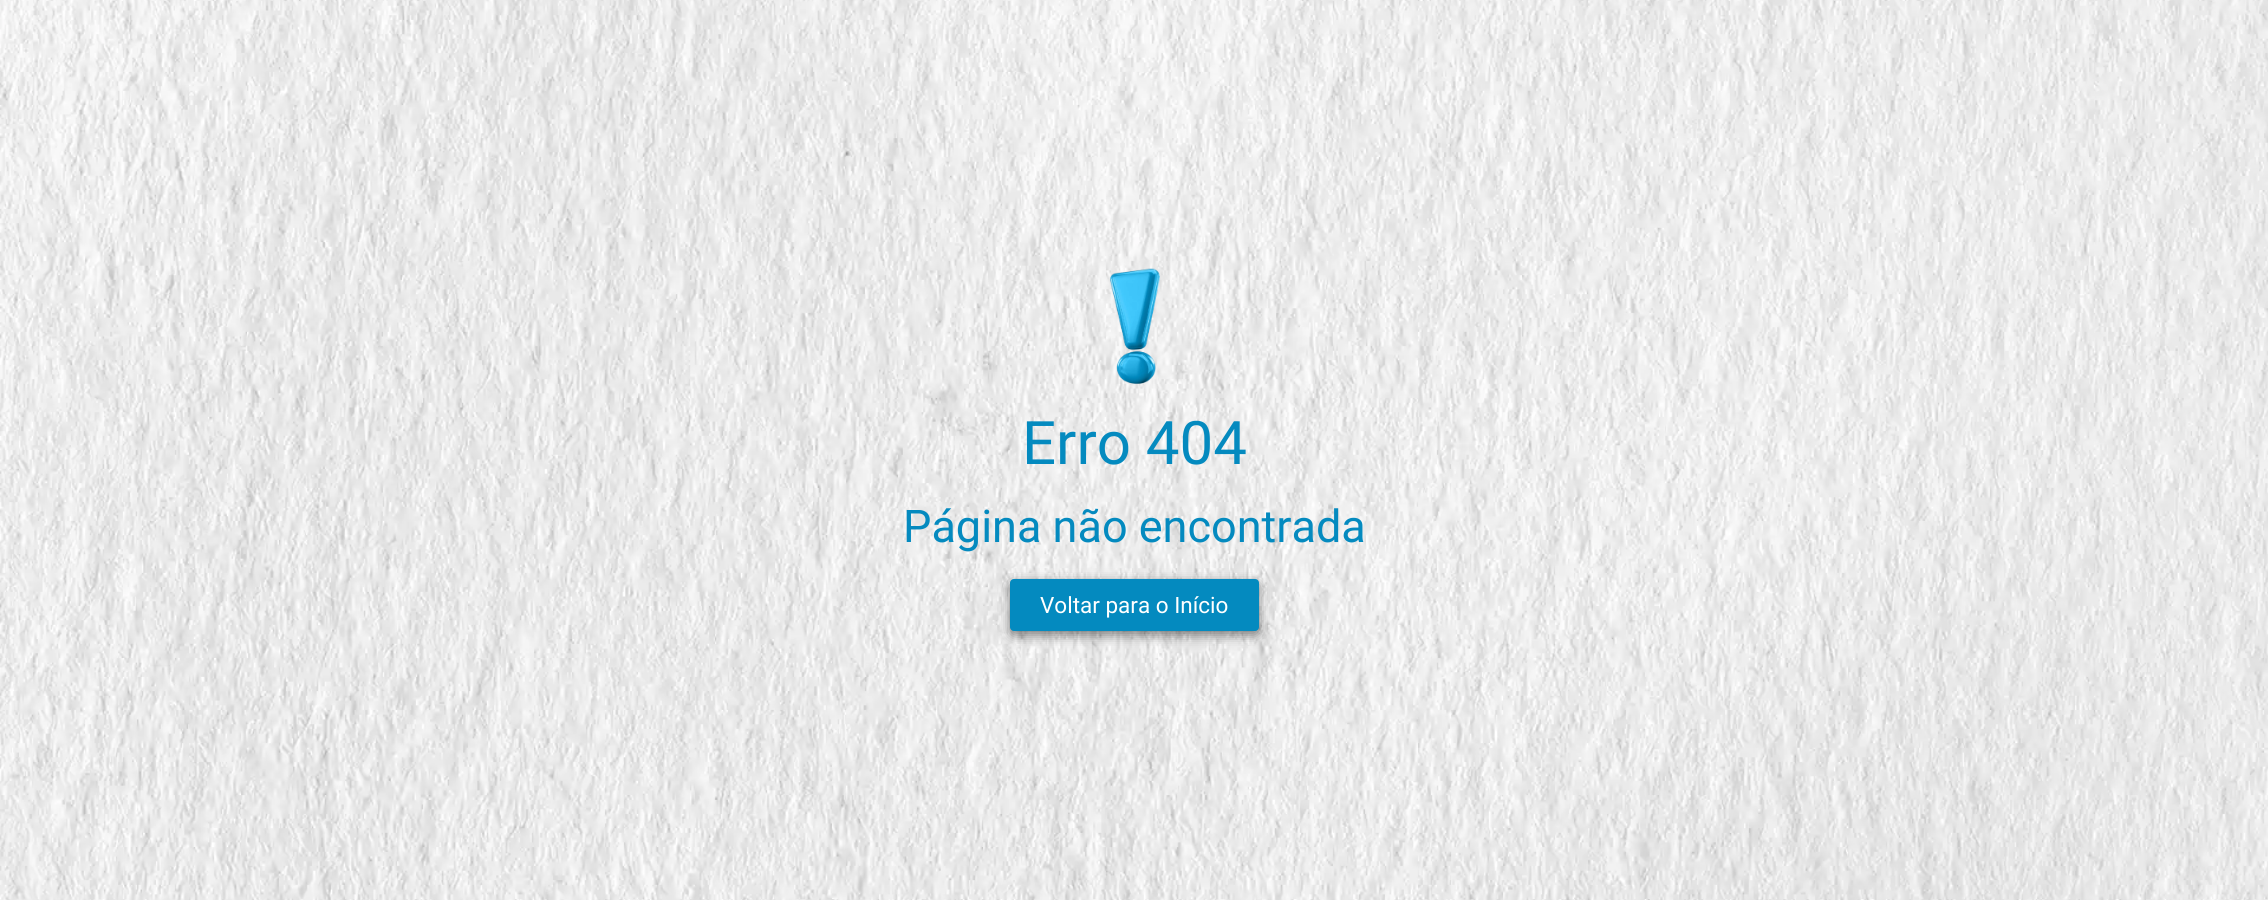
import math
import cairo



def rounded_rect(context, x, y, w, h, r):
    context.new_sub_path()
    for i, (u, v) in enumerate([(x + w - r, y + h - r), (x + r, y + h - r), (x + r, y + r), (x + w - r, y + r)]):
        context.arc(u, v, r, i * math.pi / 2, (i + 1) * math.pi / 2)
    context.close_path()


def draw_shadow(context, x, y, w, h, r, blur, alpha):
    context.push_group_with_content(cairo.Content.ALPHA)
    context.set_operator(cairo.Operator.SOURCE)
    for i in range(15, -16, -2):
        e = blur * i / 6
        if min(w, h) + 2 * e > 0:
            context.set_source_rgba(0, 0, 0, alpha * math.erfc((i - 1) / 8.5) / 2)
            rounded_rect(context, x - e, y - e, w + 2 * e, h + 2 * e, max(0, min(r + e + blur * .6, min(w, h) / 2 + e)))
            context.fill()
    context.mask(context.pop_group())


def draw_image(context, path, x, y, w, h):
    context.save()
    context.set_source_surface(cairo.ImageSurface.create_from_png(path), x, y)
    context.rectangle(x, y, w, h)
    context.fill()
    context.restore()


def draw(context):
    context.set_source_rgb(1, 1, 1)
    context.paint()
    draw_image(context, "images/1.png", 0, 0, 2268, 900)
    draw_image(context, "images/2.png", 1110, 268, 50, 116)
    context.set_source_rgb(0, 0, 0)
    draw_shadow(context, 1010, 583, 249, 52, 4, 6, 0.5)
    context.set_source_rgb(4 / 255, 138 / 255, 191 / 255)
    rounded_rect(context, 1010, 579, 249, 52, 4)
    context.fill()
    context.select_font_face("Roboto")
    context.set_font_size(60)
    context.move_to(1022, 464)
    context.show_text("Erro 404")
    context.set_font_size(45)
    context.move_to(903, 542)
    context.show_text("Página não encontrada")
    context.set_font_size(22.5)
    context.set_source_rgb(1, 1, 1)
    context.move_to(1040, 613)
    context.show_text("Voltar para o Início")


surface = cairo.ImageSurface(cairo.Format.RGB24, 2268, 909)
context = cairo.Context(surface)
options = cairo.FontOptions()
options.set_hint_metrics(cairo.HintMetrics.OFF)
options.set_hint_style(cairo.HintStyle.NONE)
context.set_font_options(options)
context.set_miter_limit(4)
draw(context)
surface.write_to_png("out.png")
